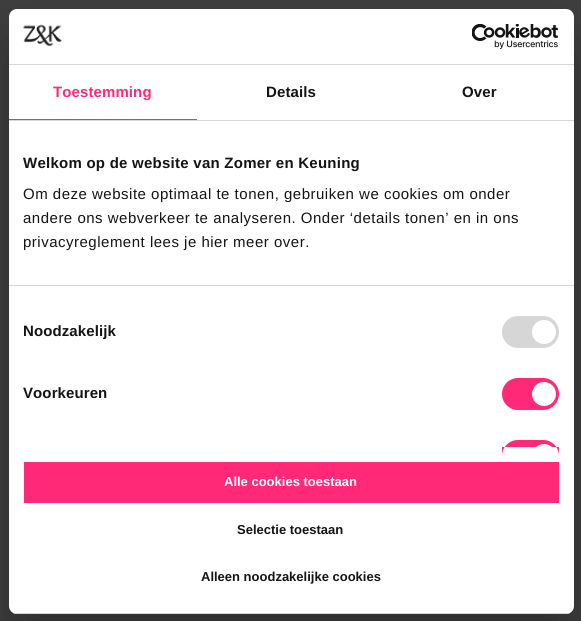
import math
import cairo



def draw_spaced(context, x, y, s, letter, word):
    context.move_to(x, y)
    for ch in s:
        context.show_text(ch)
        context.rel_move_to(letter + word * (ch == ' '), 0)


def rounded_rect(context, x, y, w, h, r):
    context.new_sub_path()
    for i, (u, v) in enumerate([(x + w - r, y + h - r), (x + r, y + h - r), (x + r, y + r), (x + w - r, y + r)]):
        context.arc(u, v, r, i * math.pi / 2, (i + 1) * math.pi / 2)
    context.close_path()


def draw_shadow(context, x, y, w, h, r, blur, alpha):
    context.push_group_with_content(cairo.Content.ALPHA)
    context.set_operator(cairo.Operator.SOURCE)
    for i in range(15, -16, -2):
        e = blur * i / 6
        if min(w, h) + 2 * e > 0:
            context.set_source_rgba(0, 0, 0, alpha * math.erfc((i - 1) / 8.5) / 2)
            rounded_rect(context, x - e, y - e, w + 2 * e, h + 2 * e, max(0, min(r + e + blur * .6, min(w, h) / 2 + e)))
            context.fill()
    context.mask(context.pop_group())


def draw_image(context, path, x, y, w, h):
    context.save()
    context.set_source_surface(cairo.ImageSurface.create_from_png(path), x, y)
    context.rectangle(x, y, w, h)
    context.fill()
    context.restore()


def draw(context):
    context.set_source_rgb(64 / 255, 64 / 255, 64 / 255)
    context.paint()
    context.set_source_rgb(0, 0, 0)
    draw_shadow(context, 9, 41, 565, 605, 8, 34, 0.3)
    context.set_source_rgb(1, 1, 1)
    rounded_rect(context, 9, 9, 565, 605, 8)
    context.fill()
    context.set_source_rgb(214 / 255, 214 / 255, 214 / 255)
    context.rectangle(9, 64, 565, 1)
    context.fill()
    draw_image(context, "images/1.png", 23, 24, 39, 23)
    draw_image(context, "images/2.png", 472, 24, 87, 25)
    context.rectangle(9, 120, 565, 1)
    context.fill()
    context.set_source_rgb(1, 41 / 255, 119 / 255)
    context.rectangle(9, 119, 188, 1)
    context.fill()
    context.set_source_rgb(214 / 255, 214 / 255, 214 / 255)
    context.rectangle(9, 285, 565, 1)
    context.fill()
    rounded_rect(context, 502, 316, 57, 32, 16)
    context.fill()
    context.set_source_rgb(1, 1, 1)
    context.arc(544, 332, 12, 0, 2 * math.pi)
    context.fill()
    context.set_source_rgb(1, 41 / 255, 119 / 255)
    rounded_rect(context, 502, 378, 57, 32, 16)
    context.fill()
    context.set_source_rgb(1, 1, 1)
    context.arc(544, 394, 12, 0, 2 * math.pi)
    context.fill()
    context.set_source_rgb(1, 41 / 255, 119 / 255)
    context.new_path()
    context.move_to(518, 440)
    context.line_to(543, 440)
    context.curve_to(552, 440, 559, 447, 559, 456)
    context.line_to(559, 447)
    context.line_to(502, 447)
    context.line_to(502, 456)
    context.curve_to(502, 447, 509, 440, 518, 440)
    context.close_path()
    context.fill()
    context.set_source_rgb(1, 1, 1)
    context.new_path()
    context.move_to(544, 444)
    context.curve_to(550.5, 444, 556, 449.5, 556, 456)
    context.line_to(556, 447)
    context.line_to(532, 447)
    context.line_to(532, 456)
    context.curve_to(532, 449.5, 537.5, 444, 544, 444)
    context.close_path()
    context.fill()
    context.save()
    rounded_rect(context, 9, 9, 565, 605, 8)
    context.clip()
    context.set_source_rgb(214 / 255, 214 / 255, 214 / 255)
    context.rectangle(9, 613, 565, 1)
    context.fill()
    context.restore()
    context.set_source_rgb(1, 41 / 255, 119 / 255)
    context.rectangle(24, 462, 535, 41)
    context.fill()
    context.select_font_face("Liberation Sans", cairo.FontSlant.NORMAL, cairo.FontWeight.BOLD)
    context.set_font_size(15)
    draw_spaced(context, 53, 97, "Toestemming", 0.1, 0)
    context.set_source_rgb(20 / 255, 20 / 255, 20 / 255)
    draw_spaced(context, 266, 97, "Details", 0.1, 0)
    draw_spaced(context, 462, 97, "Over", 0.1, 0)
    draw_spaced(context, 23, 168, "Welkom op de website van Zomer en Keuning", 0.25, 0)
    context.select_font_face("Liberation Sans")
    draw_spaced(context, 23, 199, "Om deze website optimaal te tonen, gebruiken we cookies om onder", 0.5, 0)
    draw_spaced(context, 23, 223, "andere ons webverkeer te analyseren. Onder ‘details tonen’ en in ons", 0.5, 0)
    draw_spaced(context, 23, 247, "privacyreglement lees je hier meer over.", 0.5, 0)
    context.select_font_face("Liberation Sans", cairo.FontSlant.NORMAL, cairo.FontWeight.BOLD)
    draw_spaced(context, 23, 336, "Noodzakelijk", 0.1, 0)
    draw_spaced(context, 23, 398, "Voorkeuren", 0.1, 0)
    context.set_font_size(13)
    context.set_source_rgb(1, 1, 1)
    context.move_to(224, 486)
    context.show_text("Alle cookies toestaan")
    context.set_source_rgb(20 / 255, 20 / 255, 20 / 255)
    context.move_to(237, 534)
    context.show_text("Selectie toestaan")
    context.move_to(201, 581)
    context.show_text("Alleen noodzakelijke cookies")


surface = cairo.ImageSurface(cairo.Format.RGB24, 581, 621)
context = cairo.Context(surface)
options = cairo.FontOptions()
options.set_hint_metrics(cairo.HintMetrics.OFF)
options.set_hint_style(cairo.HintStyle.NONE)
context.set_font_options(options)
context.set_miter_limit(4)
draw(context)
surface.write_to_png("out.png")
